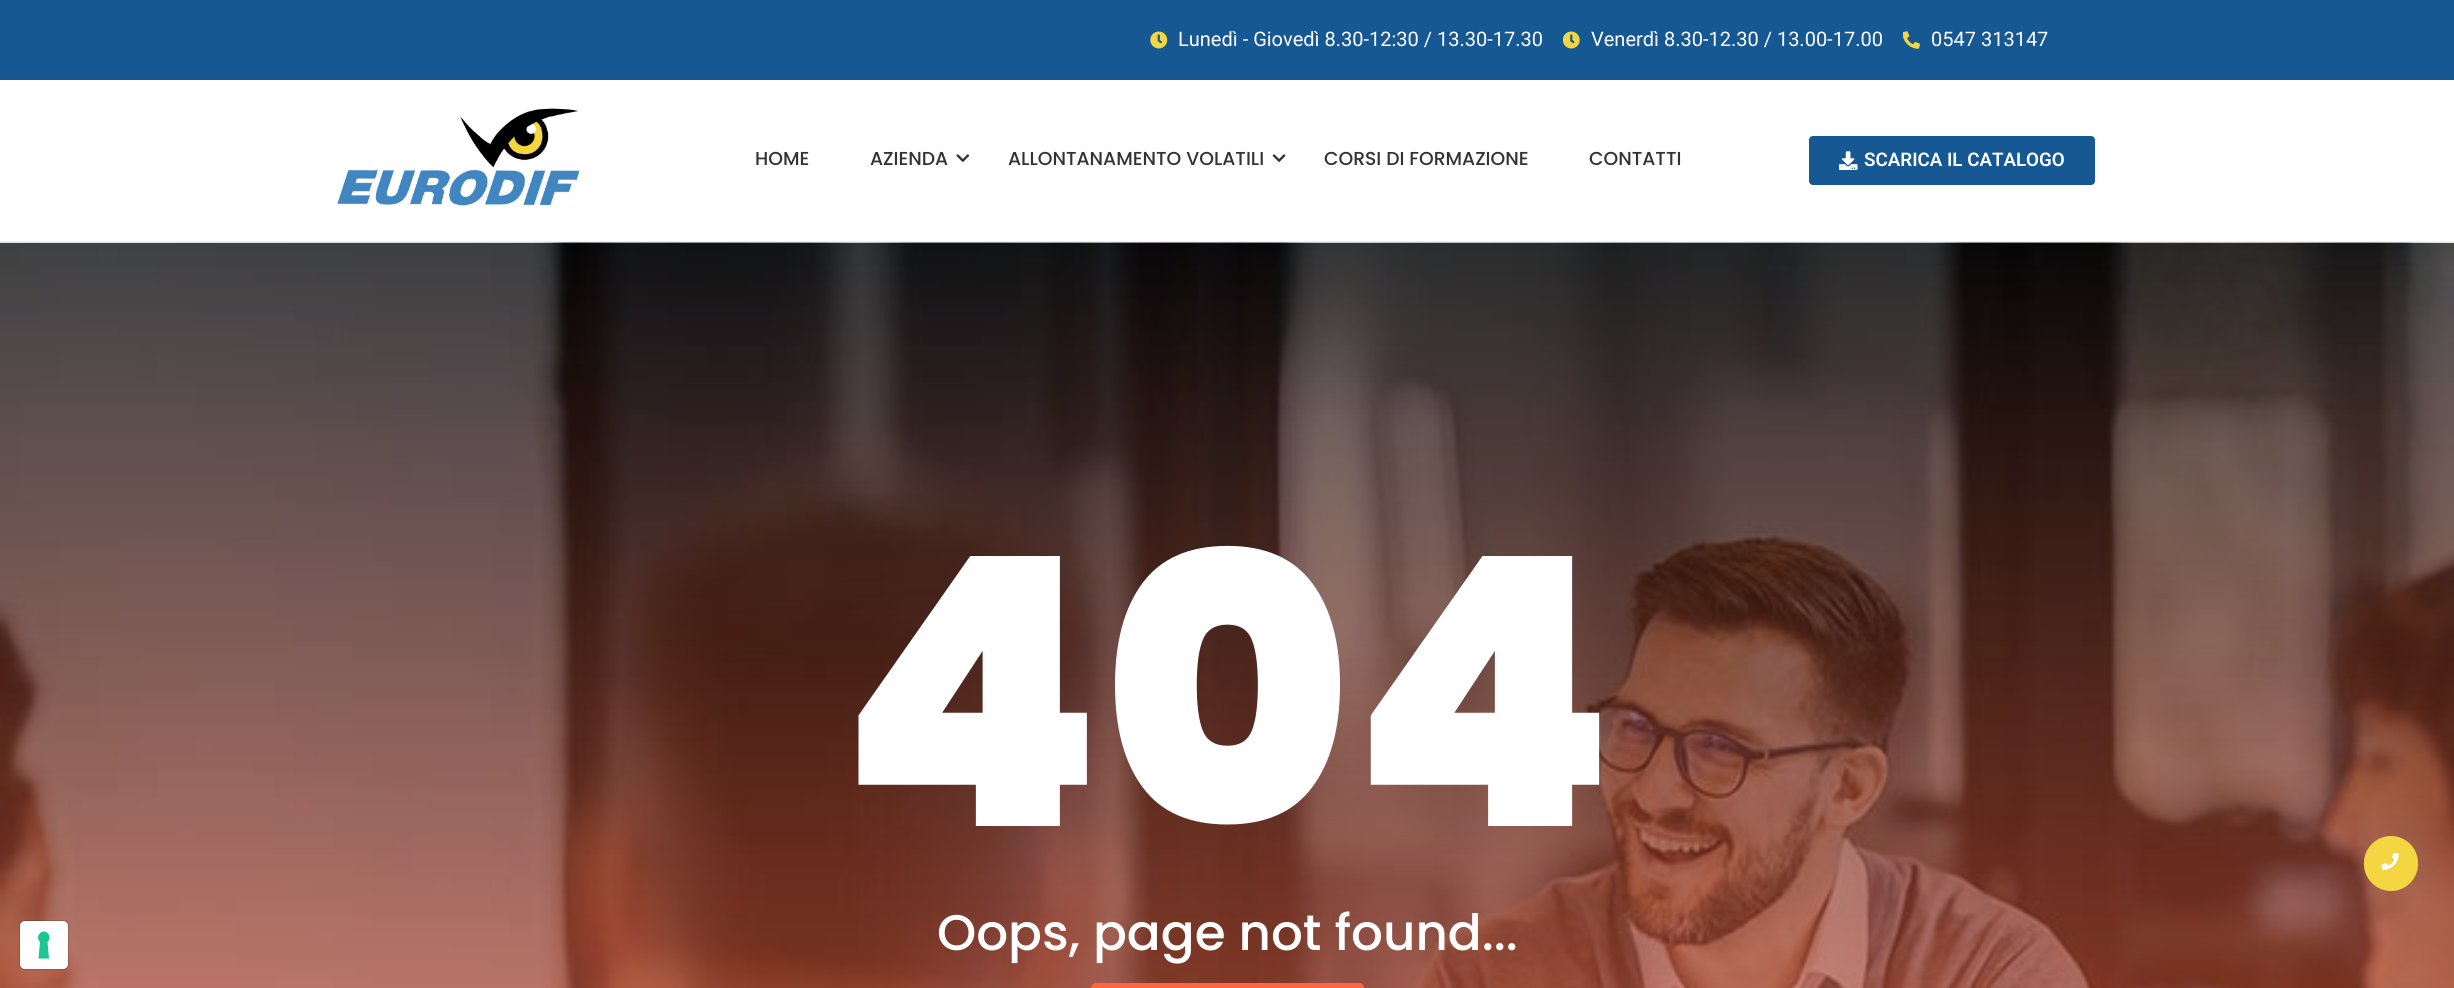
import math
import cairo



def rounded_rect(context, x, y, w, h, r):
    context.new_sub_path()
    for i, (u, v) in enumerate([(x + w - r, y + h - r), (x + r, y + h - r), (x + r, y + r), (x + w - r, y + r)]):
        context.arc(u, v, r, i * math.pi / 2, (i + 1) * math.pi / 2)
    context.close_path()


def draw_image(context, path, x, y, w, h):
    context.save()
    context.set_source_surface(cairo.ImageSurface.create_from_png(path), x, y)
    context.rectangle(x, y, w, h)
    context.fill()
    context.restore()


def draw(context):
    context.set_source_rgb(1, 1, 1)
    context.paint()
    context.set_source_rgb(21 / 255, 88 / 255, 148 / 255)
    context.rectangle(0, 0, 2454, 80)
    context.fill()
    draw_image(context, "images/1.png", 1150, 31, 18, 18)
    draw_image(context, "images/2.png", 1563, 31, 17, 18)
    draw_image(context, "images/3.png", 1903, 31, 17, 18)
    context.set_source_rgb(240 / 255, 240 / 255, 240 / 255)
    context.rectangle(0, 241, 2454, 1)
    context.fill()
    draw_image(context, "images/4.png", 335, 108, 245, 99)
    draw_image(context, "images/5.png", 956, 154, 14, 8)
    draw_image(context, "images/6.png", 1272, 154, 14, 8)
    context.set_source_rgb(21 / 255, 88 / 255, 148 / 255)
    rounded_rect(context, 1809, 136, 286, 49, 4)
    context.fill()
    draw_image(context, "images/7.png", 1839, 151, 19, 19)
    draw_image(context, "images/8.png", 0, 242, 2454, 746)
    context.set_source_rgb(1, 101 / 255, 62 / 255)
    rounded_rect(context, 1091, 983, 273, 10, 5)
    context.fill()
    context.set_source_rgb(243 / 255, 214 / 255, 65 / 255)
    rounded_rect(context, 2364, 836, 54, 55, 27)
    context.fill()
    draw_image(context, "images/9.png", 2381, 853, 18, 17)
    rounded_rect(context, 19.5, 920.5, 49, 49, 5.5)
    context.set_source_rgba(0, 0, 0, 0.15)
    context.set_line_width(1)
    context.stroke()
    context.set_source_rgb(1, 1, 1)
    rounded_rect(context, 20, 921, 48, 48, 5)
    context.fill()
    context.set_source_rgb(28 / 255, 198 / 255, 145 / 255)
    context.set_fill_rule(cairo.FillRule.EVEN_ODD)
    context.new_path()
    context.move_to(44, 931.5)
    context.curve_to(49, 931.5, 51.5, 938.5, 47.5, 942)
    context.line_to(49, 958.5)
    context.line_to(38.5, 958.5)
    context.line_to(40, 942)
    context.curve_to(36, 938.5, 38.5, 931.5, 44, 931.5)
    context.close_path()
    context.fill()
    context.select_font_face("Roboto")
    context.set_font_size(20)
    context.set_source_rgb(1, 1, 1)
    context.move_to(1178, 46)
    context.show_text("Lunedì - Giovedì 8.30-12:30 / 13.30-17.30")
    context.move_to(1591, 46)
    context.show_text("Venerdì 8.30-12.30 / 13.00-17.00")
    context.move_to(1931, 46)
    context.show_text("0547 313147")
    context.select_font_face("Poppins Medium")
    context.set_font_size(18.75)
    context.set_source_rgb(51 / 255, 51 / 255, 51 / 255)
    context.move_to(755, 165)
    context.show_text("HOME")
    context.move_to(870, 165)
    context.show_text("AZIENDA")
    context.move_to(1008, 165)
    context.show_text("ALLONTANAMENTO VOLATILI")
    context.move_to(1324, 165)
    context.show_text("CORSI DI FORMAZIONE")
    context.move_to(1589, 165)
    context.show_text("CONTATTI")
    context.select_font_face("Roboto SemiBold")
    context.set_source_rgb(1, 1, 1)
    context.move_to(1864, 166)
    context.show_text("SCARICA IL CATALOGO")
    context.select_font_face("Poppins Black")
    context.set_font_size(375)
    context.move_to(839, 826)
    context.show_text("404")
    context.select_font_face("Poppins Medium")
    context.set_font_size(50)
    context.move_to(937, 950)
    context.show_text("Oops, page not found...")


surface = cairo.ImageSurface(cairo.Format.RGB24, 2454, 988)
context = cairo.Context(surface)
options = cairo.FontOptions()
options.set_hint_metrics(cairo.HintMetrics.OFF)
options.set_hint_style(cairo.HintStyle.NONE)
context.set_font_options(options)
context.set_miter_limit(4)
draw(context)
surface.write_to_png("out.png")
